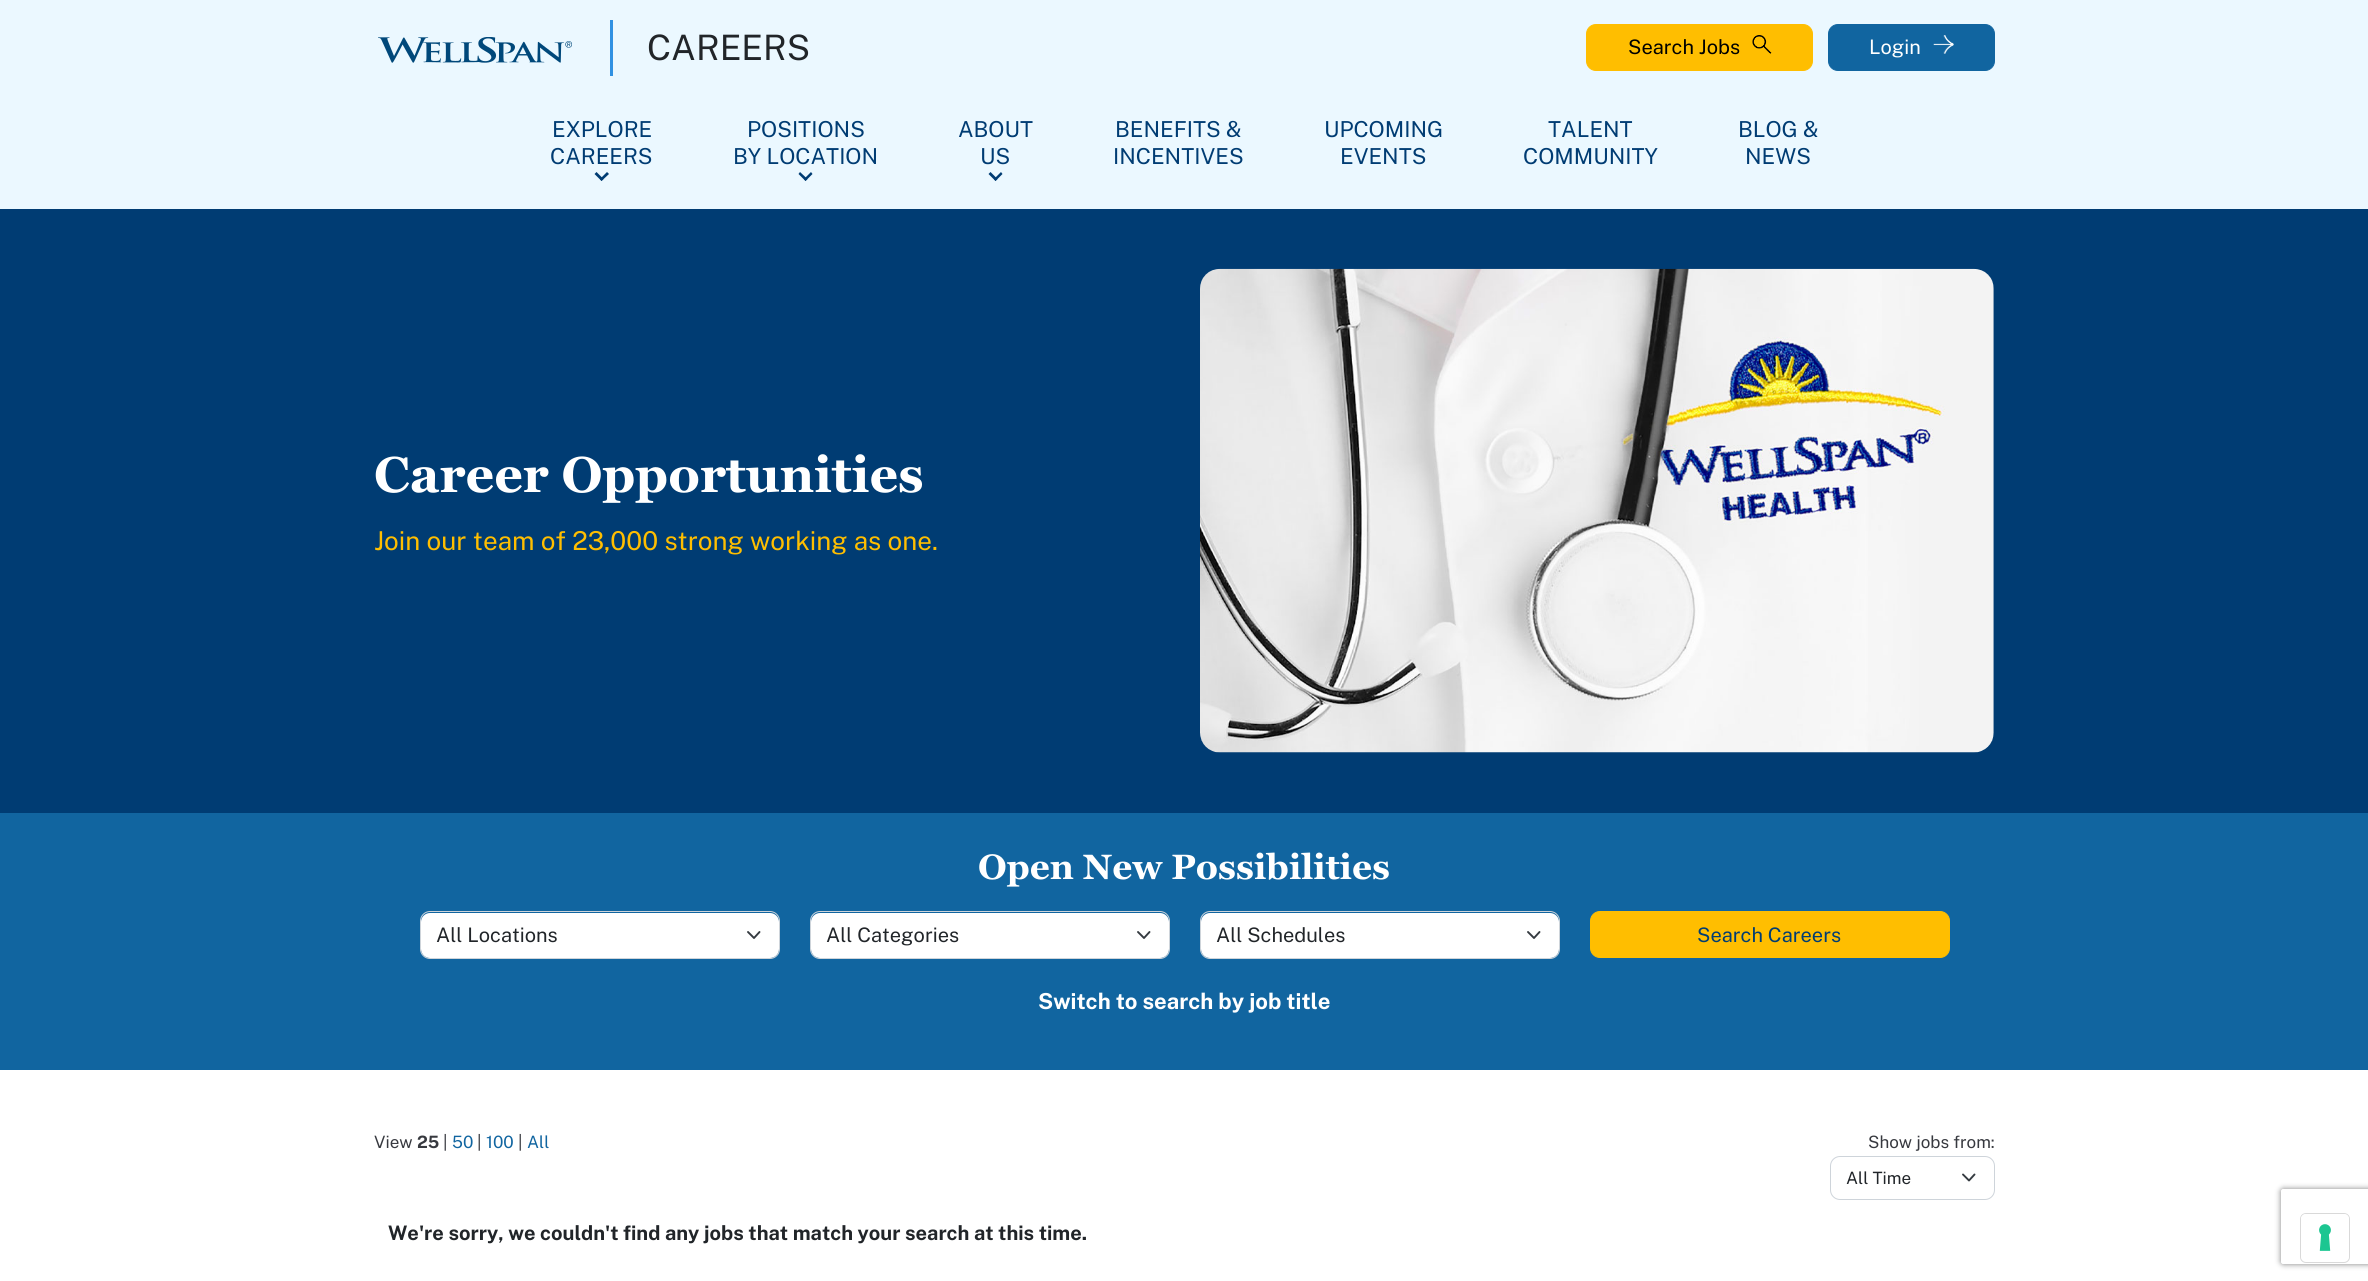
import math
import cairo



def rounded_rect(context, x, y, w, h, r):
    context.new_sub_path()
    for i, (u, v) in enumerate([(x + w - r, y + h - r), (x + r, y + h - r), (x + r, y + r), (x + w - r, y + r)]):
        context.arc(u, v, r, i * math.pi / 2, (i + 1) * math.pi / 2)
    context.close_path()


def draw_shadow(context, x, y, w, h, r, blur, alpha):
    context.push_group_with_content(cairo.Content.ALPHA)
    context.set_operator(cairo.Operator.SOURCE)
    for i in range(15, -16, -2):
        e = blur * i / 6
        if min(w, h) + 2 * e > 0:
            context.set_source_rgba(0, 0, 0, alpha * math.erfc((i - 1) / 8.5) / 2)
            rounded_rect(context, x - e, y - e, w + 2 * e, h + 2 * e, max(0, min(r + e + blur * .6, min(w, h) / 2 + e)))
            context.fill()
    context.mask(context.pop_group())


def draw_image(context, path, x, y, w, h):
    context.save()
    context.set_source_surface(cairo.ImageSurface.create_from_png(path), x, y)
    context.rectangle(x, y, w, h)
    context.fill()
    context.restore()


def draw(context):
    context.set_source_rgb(1, 1, 1)
    context.paint()
    context.set_source_rgb(235 / 255, 248 / 255, 1)
    context.rectangle(0, 0, 2368, 209)
    context.fill()
    draw_image(context, "images/1.png", 378, 37, 194, 26)
    context.set_source_rgb(48 / 255, 145 / 255, 226 / 255)
    context.rectangle(610, 20, 3, 56)
    context.fill()
    context.set_source_rgb(1, 190 / 255, 0)
    rounded_rect(context, 1586.5, 24.5, 226, 46, 9.5)
    context.fill_preserve()
    context.set_line_width(1)
    context.stroke()
    draw_image(context, "images/2.png", 1752, 35, 20, 19)
    context.set_source_rgb(17 / 255, 101 / 255, 160 / 255)
    rounded_rect(context, 1828.5, 24.5, 166, 46, 9.5)
    context.fill_preserve()
    context.stroke()
    draw_image(context, "images/3.png", 1933, 35, 21, 19)
    context.set_source_rgb(0, 60 / 255, 115 / 255)
    context.new_path()
    context.move_to(607, 172)
    context.line_to(609, 174)
    context.line_to(601.5, 181)
    context.line_to(600, 179)
    context.close_path()
    context.fill()
    context.new_path()
    context.move_to(596.5, 172)
    context.line_to(603.5, 179)
    context.line_to(601.5, 181)
    context.line_to(594.5, 174)
    context.close_path()
    context.fill()
    context.new_path()
    context.move_to(811, 172)
    context.line_to(812.5, 174)
    context.line_to(805.5, 181)
    context.line_to(804, 179)
    context.close_path()
    context.fill()
    context.new_path()
    context.move_to(800, 172)
    context.line_to(807.5, 179)
    context.line_to(805.5, 181)
    context.line_to(798.5, 174)
    context.close_path()
    context.fill()
    context.new_path()
    context.move_to(1001, 172)
    context.line_to(1002.5, 174)
    context.line_to(995.5, 181)
    context.line_to(994, 179)
    context.close_path()
    context.fill()
    context.new_path()
    context.move_to(990.5, 172)
    context.line_to(997.5, 179)
    context.line_to(995.5, 181)
    context.line_to(988.5, 174)
    context.close_path()
    context.fill()
    context.rectangle(0, 209, 2368, 604)
    context.fill()
    draw_image(context, "images/4.png", 1200, 268, 794, 485)
    context.set_source_rgb(17 / 255, 101 / 255, 160 / 255)
    context.rectangle(0, 813, 2368, 257)
    context.fill()
    context.set_source_rgb(1, 1, 1)
    rounded_rect(context, 421, 913, 358, 45, 9)
    context.fill()
    context.new_path()
    context.move_to(748, 932)
    context.line_to(754, 938)
    context.line_to(759.5, 932)
    context.set_source_rgb(52 / 255, 58 / 255, 64 / 255)
    context.set_line_width(1.9)
    context.set_line_cap(cairo.LineCap.ROUND)
    context.set_line_join(cairo.LineJoin.ROUND)
    context.stroke()
    rounded_rect(context, 420.5, 911.5, 359, 47, 9.5)
    context.set_source_rgb(206 / 255, 212 / 255, 218 / 255)
    context.set_line_width(1)
    context.set_line_cap(cairo.LineCap.BUTT)
    context.set_line_join(cairo.LineJoin.MITER)
    context.stroke()
    context.set_source_rgb(1, 1, 1)
    rounded_rect(context, 811, 913, 358, 45, 9)
    context.fill()
    context.new_path()
    context.move_to(1138, 932)
    context.line_to(1144, 938)
    context.line_to(1149.5, 932)
    context.set_source_rgb(52 / 255, 58 / 255, 64 / 255)
    context.set_line_width(1.9)
    context.set_line_cap(cairo.LineCap.ROUND)
    context.set_line_join(cairo.LineJoin.ROUND)
    context.stroke()
    rounded_rect(context, 810.5, 911.5, 359, 47, 9.5)
    context.set_source_rgb(206 / 255, 212 / 255, 218 / 255)
    context.set_line_width(1)
    context.set_line_cap(cairo.LineCap.BUTT)
    context.set_line_join(cairo.LineJoin.MITER)
    context.stroke()
    context.set_source_rgb(1, 1, 1)
    rounded_rect(context, 1201, 913, 358, 45, 9)
    context.fill()
    context.new_path()
    context.move_to(1528, 932)
    context.line_to(1534, 938)
    context.line_to(1539.5, 932)
    context.set_source_rgb(52 / 255, 58 / 255, 64 / 255)
    context.set_line_width(1.9)
    context.set_line_cap(cairo.LineCap.ROUND)
    context.set_line_join(cairo.LineJoin.ROUND)
    context.stroke()
    rounded_rect(context, 1200.5, 911.5, 359, 47, 9.5)
    context.set_source_rgb(206 / 255, 212 / 255, 218 / 255)
    context.set_line_width(1)
    context.set_line_cap(cairo.LineCap.BUTT)
    context.set_line_join(cairo.LineJoin.MITER)
    context.stroke()
    context.set_source_rgb(1, 190 / 255, 0)
    rounded_rect(context, 1590.5, 911.5, 359, 46, 9.5)
    context.fill_preserve()
    context.stroke()
    context.new_path()
    context.move_to(1963, 1174.5)
    context.line_to(1969, 1180.5)
    context.line_to(1974.5, 1174.5)
    context.set_source_rgb(52 / 255, 58 / 255, 64 / 255)
    context.set_line_width(1.9)
    context.set_line_cap(cairo.LineCap.ROUND)
    context.set_line_join(cairo.LineJoin.ROUND)
    context.stroke()
    rounded_rect(context, 1830.5, 1156.5, 164, 43, 9.5)
    context.set_source_rgb(206 / 255, 212 / 255, 218 / 255)
    context.set_line_width(1)
    context.set_line_cap(cairo.LineCap.BUTT)
    context.set_line_join(cairo.LineJoin.MITER)
    context.stroke()
    context.save()
    context.set_fill_rule(cairo.FillRule.EVEN_ODD)
    context.new_path()
    context.move_to(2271, 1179)
    context.line_to(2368, 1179)
    context.line_to(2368, 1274)
    context.line_to(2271, 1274)
    context.close_path()
    context.move_to(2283.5, 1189)
    context.line_to(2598.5, 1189)
    context.curve_to(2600, 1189, 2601, 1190, 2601, 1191.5)
    context.line_to(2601, 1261.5)
    context.curve_to(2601, 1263, 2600, 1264, 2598.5, 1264)
    context.line_to(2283.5, 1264)
    context.curve_to(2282, 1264, 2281, 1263, 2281, 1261.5)
    context.line_to(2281, 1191.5)
    context.curve_to(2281, 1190, 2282, 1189, 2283.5, 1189)
    context.close_path()
    context.clip()
    context.set_source_rgb(128 / 255, 128 / 255, 128 / 255)
    draw_shadow(context, 2281, 1189, 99, 75, 2.5, 3, 1)
    context.restore()
    rounded_rect(context, 2300.5, 1213.5, 49, 49, 5.5)
    context.set_source_rgb(217 / 255, 217 / 255, 217 / 255)
    context.stroke()
    context.set_source_rgb(1, 1, 1)
    rounded_rect(context, 2301, 1214, 48, 47, 5)
    context.fill()
    draw_image(context, "images/5.png", 2319, 1224, 12, 27)
    context.select_font_face("Public Sans")
    context.set_font_size(35)
    context.set_source_rgb(33 / 255, 37 / 255, 41 / 255)
    context.move_to(647, 60)
    context.show_text("CAREERS")
    context.set_font_size(20)
    context.set_source_rgb(0, 0, 0)
    context.move_to(1628, 54)
    context.show_text("Search Jobs")
    context.set_source_rgb(1, 1, 1)
    context.move_to(1869, 54)
    context.show_text("Login")
    context.set_font_size(22)
    context.set_source_rgb(0, 60 / 255, 115 / 255)
    context.move_to(552, 137)
    context.show_text("EXPLORE")
    context.move_to(550, 164)
    context.show_text("CAREERS")
    context.move_to(747, 137)
    context.show_text("POSITIONS")
    context.move_to(733, 164)
    context.show_text("BY LOCATION")
    context.move_to(958, 137)
    context.show_text("ABOUT")
    context.move_to(980, 164)
    context.show_text("US")
    context.move_to(1115, 137)
    context.show_text("BENEFITS &")
    context.move_to(1113, 164)
    context.show_text("INCENTIVES")
    context.move_to(1324, 137)
    context.show_text("UPCOMING")
    context.move_to(1340, 164)
    context.show_text("EVENTS")
    context.move_to(1548, 137)
    context.show_text("TALENT")
    context.move_to(1523, 164)
    context.show_text("COMMUNITY")
    context.move_to(1738, 137)
    context.show_text("BLOG &")
    context.move_to(1745, 164)
    context.show_text("NEWS")
    context.select_font_face("Georgia", cairo.FontSlant.NORMAL, cairo.FontWeight.BOLD)
    context.set_font_size(50)
    context.set_source_rgb(1, 1, 1)
    context.move_to(374, 492)
    context.show_text("Career Opportunities")
    context.select_font_face("Public Sans")
    context.set_font_size(26)
    context.set_source_rgb(1, 190 / 255, 0)
    context.move_to(374, 550)
    context.show_text("Join our team of 23,000 strong working as one.")
    context.select_font_face("Georgia", cairo.FontSlant.NORMAL, cairo.FontWeight.BOLD)
    context.set_font_size(35)
    context.set_source_rgb(1, 1, 1)
    context.move_to(978, 879)
    context.show_text("Open New Possibilities")
    context.select_font_face("Public Sans")
    context.set_font_size(20)
    context.set_source_rgb(33 / 255, 37 / 255, 41 / 255)
    context.move_to(436, 942)
    context.show_text("All Locations")
    context.move_to(826, 942)
    context.show_text("All Categories")
    context.move_to(1216, 942)
    context.show_text("All Schedules")
    context.set_source_rgb(0, 60 / 255, 115 / 255)
    context.move_to(1697, 942)
    context.show_text("Search Careers")
    context.select_font_face("Public Sans", cairo.FontSlant.NORMAL, cairo.FontWeight.BOLD)
    context.set_font_size(22)
    context.set_source_rgb(1, 1, 1)
    context.move_to(1038, 1009)
    context.show_text("Switch to search by job title")
    context.select_font_face("Public Sans")
    context.set_font_size(17)
    context.set_source_rgb(55 / 255, 57 / 255, 63 / 255)
    context.move_to(374, 1148)
    context.show_text("View")
    context.select_font_face("Public Sans", cairo.FontSlant.NORMAL, cairo.FontWeight.BOLD)
    context.move_to(417, 1148)
    context.show_text("25")
    context.select_font_face("Public Sans")
    context.move_to(443, 1148)
    context.show_text("|")
    context.set_source_rgb(17 / 255, 101 / 255, 160 / 255)
    context.move_to(452, 1148)
    context.show_text("50")
    context.set_source_rgb(55 / 255, 57 / 255, 63 / 255)
    context.move_to(477, 1148)
    context.show_text("|")
    context.set_source_rgb(17 / 255, 101 / 255, 160 / 255)
    context.move_to(486, 1148)
    context.show_text("100")
    context.set_source_rgb(55 / 255, 57 / 255, 63 / 255)
    context.move_to(518, 1148)
    context.show_text("|")
    context.set_source_rgb(17 / 255, 101 / 255, 160 / 255)
    context.move_to(527, 1148)
    context.show_text("All")
    context.set_source_rgb(55 / 255, 57 / 255, 63 / 255)
    context.move_to(1868, 1148)
    context.show_text("Show jobs from:")
    context.set_source_rgb(33 / 255, 37 / 255, 41 / 255)
    context.move_to(1846, 1184)
    context.show_text("All Time")
    context.select_font_face("Public Sans", cairo.FontSlant.NORMAL, cairo.FontWeight.BOLD)
    context.set_font_size(20)
    context.move_to(388, 1240)
    context.show_text("We're sorry, we couldn't find any jobs that match your search at this time.")


surface = cairo.ImageSurface(cairo.Format.RGB24, 2368, 1281)
context = cairo.Context(surface)
options = cairo.FontOptions()
options.set_hint_metrics(cairo.HintMetrics.OFF)
options.set_hint_style(cairo.HintStyle.NONE)
context.set_font_options(options)
context.set_miter_limit(4)
draw(context)
surface.write_to_png("out.png")
